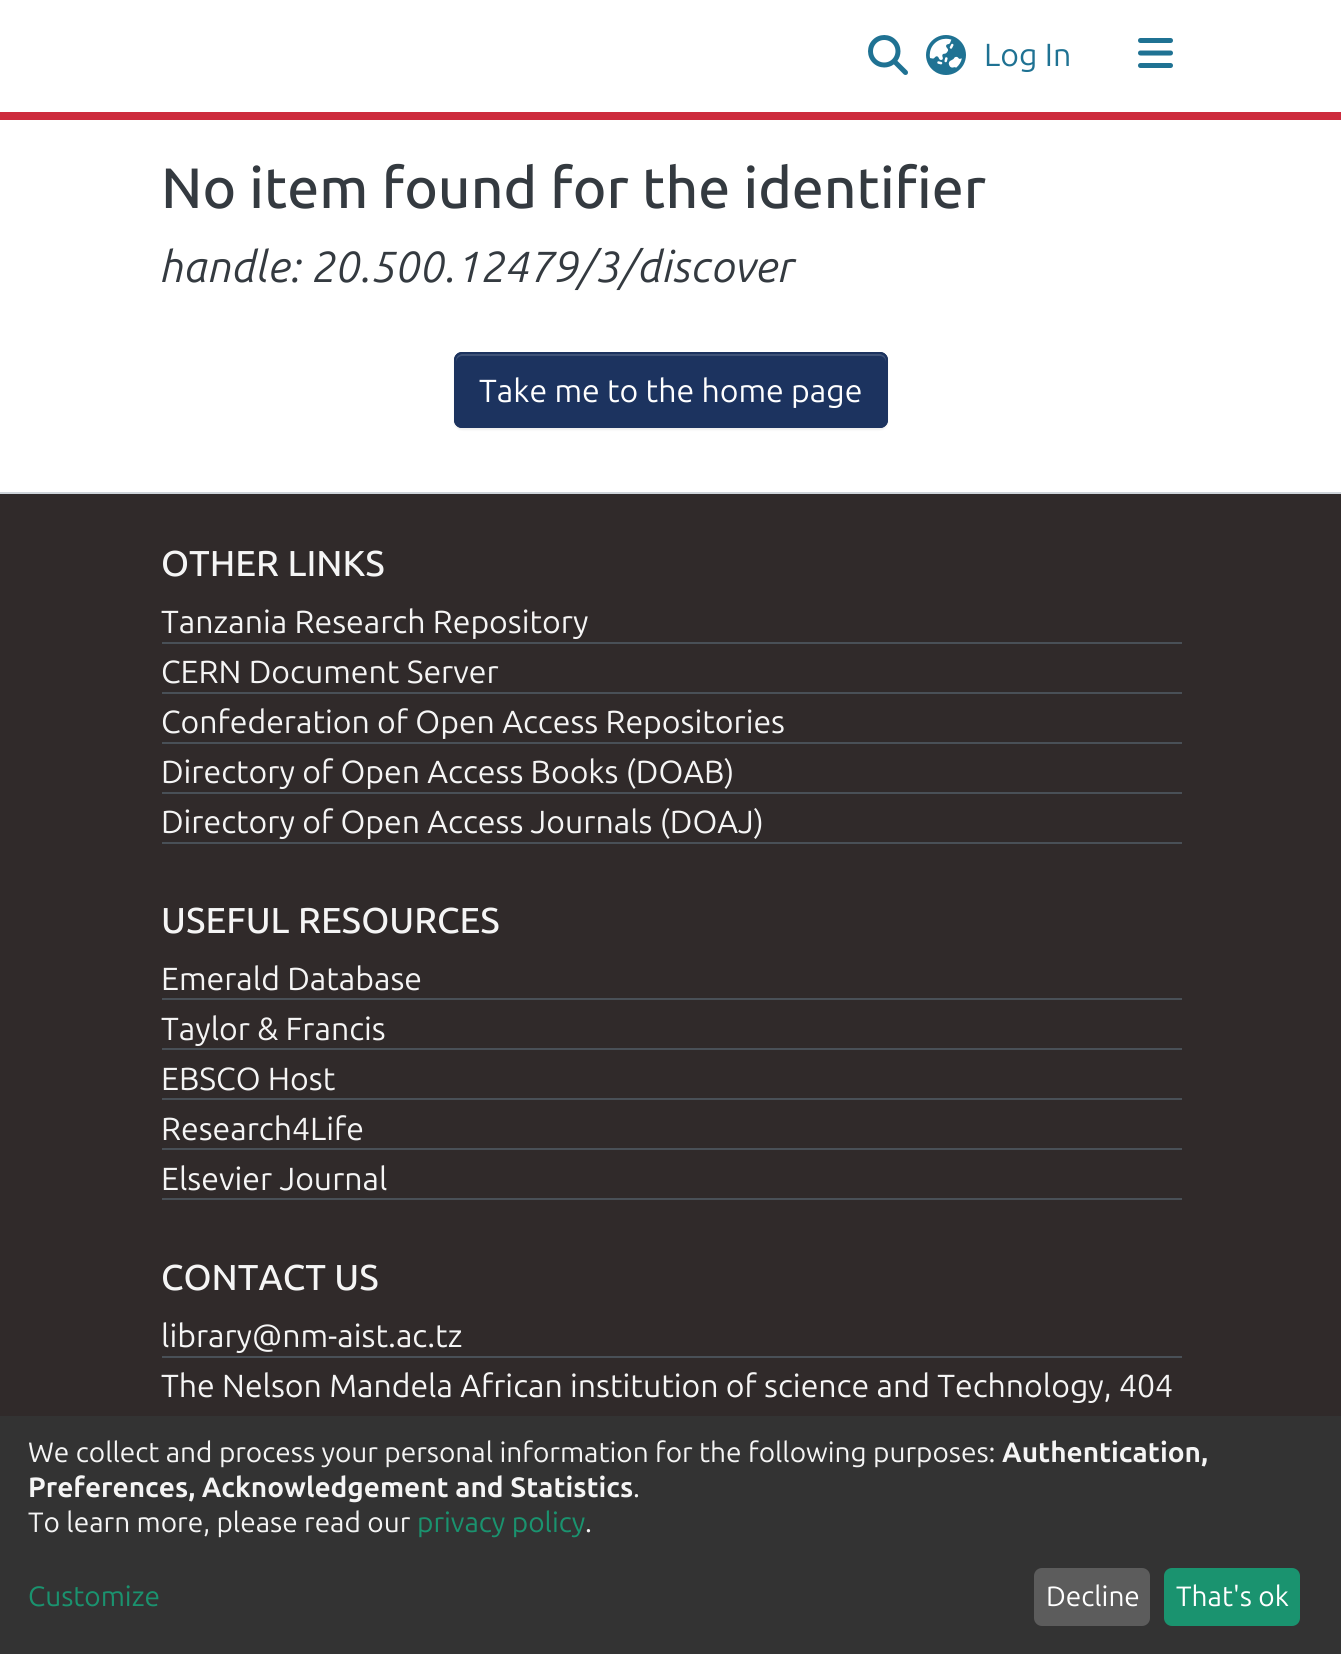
import math
import cairo



def rounded_rect(context, x, y, w, h, r):
    context.new_sub_path()
    for i, (u, v) in enumerate([(x + w - r, y + h - r), (x + r, y + h - r), (x + r, y + r), (x + w - r, y + r)]):
        context.arc(u, v, r, i * math.pi / 2, (i + 1) * math.pi / 2)
    context.close_path()


def draw_shadow(context, x, y, w, h, r, blur, alpha):
    context.push_group_with_content(cairo.Content.ALPHA)
    context.set_operator(cairo.Operator.SOURCE)
    for i in range(15, -16, -2):
        e = blur * i / 6
        if min(w, h) + 2 * e > 0:
            context.set_source_rgba(0, 0, 0, alpha * math.erfc((i - 1) / 8.5) / 2)
            rounded_rect(context, x - e, y - e, w + 2 * e, h + 2 * e, max(0, min(r + e + blur * .6, min(w, h) / 2 + e)))
            context.fill()
    context.mask(context.pop_group())


def draw_image(context, path, x, y, w, h):
    context.save()
    context.set_source_surface(cairo.ImageSurface.create_from_png(path), x, y)
    context.rectangle(x, y, w, h)
    context.fill()
    context.restore()


def draw(context):
    context.set_source_rgb(1, 1, 1)
    context.paint()
    context.set_source_rgb(205 / 255, 43 / 255, 61 / 255)
    context.rectangle(0, 112, 1341, 8)
    context.fill()
    draw_image(context, "images/1.png", 868, 35, 40, 40)
    draw_image(context, "images/2.png", 926, 35, 40, 40)
    draw_image(context, "images/3.png", 1138, 38, 35, 30)
    context.set_source_rgb(0, 0, 0)
    draw_shadow(context, 454, 354, 434, 76, 8, 1, 0.07)
    context.set_source_rgb(28 / 255, 51 / 255, 95 / 255)
    rounded_rect(context, 454, 352, 434, 76, 8)
    context.fill()
    context.set_source_rgb(62 / 255, 82 / 255, 119 / 255)
    context.new_path()
    context.move_to(462, 356)
    context.line_to(880, 356)
    context.curve_to(883, 356, 886, 359, 886, 362)
    context.line_to(886, 360)
    context.curve_to(886, 357, 883, 354, 880, 354)
    context.line_to(462, 354)
    context.curve_to(459, 354, 456, 357, 456, 360)
    context.line_to(456, 362)
    context.curve_to(456, 359, 459, 356, 462, 356)
    context.close_path()
    context.fill()
    rounded_rect(context, 455, 353, 432, 74, 7)
    context.set_source_rgb(28 / 255, 51 / 255, 95 / 255)
    context.stroke()
    context.set_source_rgb(206 / 255, 212 / 255, 218 / 255)
    context.rectangle(0, 492, 1341, 2)
    context.fill()
    context.set_source_rgb(48 / 255, 42 / 255, 42 / 255)
    context.rectangle(0, 494, 1341, 922)
    context.fill()
    context.set_source_rgb(73 / 255, 80 / 255, 87 / 255)
    context.rectangle(162, 642, 1020, 2)
    context.fill()
    context.rectangle(162, 692, 1020, 2)
    context.fill()
    context.rectangle(162, 742, 1020, 2)
    context.fill()
    context.rectangle(162, 792, 1020, 2)
    context.fill()
    context.rectangle(162, 842, 1020, 2)
    context.fill()
    context.rectangle(162, 998, 1020, 2)
    context.fill()
    context.rectangle(162, 1048, 1020, 2)
    context.fill()
    context.rectangle(162, 1098, 1020, 2)
    context.fill()
    context.rectangle(162, 1148, 1020, 2)
    context.fill()
    context.rectangle(162, 1198, 1020, 2)
    context.fill()
    context.rectangle(162, 1356, 1020, 2)
    context.fill()
    context.set_source_rgb(51 / 255, 51 / 255, 51 / 255)
    context.rectangle(0, 1416, 1341, 238)
    context.fill()
    context.set_source_rgb(92 / 255, 92 / 255, 92 / 255)
    rounded_rect(context, 1034, 1568, 116, 58, 8)
    context.fill()
    context.set_source_rgb(26 / 255, 147 / 255, 111 / 255)
    rounded_rect(context, 1164, 1568, 136, 58, 8)
    context.fill()
    context.select_font_face("Ubuntu")
    context.set_font_size(32)
    context.set_source_rgb(31 / 255, 114 / 255, 147 / 255)
    context.move_to(984, 66)
    context.show_text("Log In")
    context.select_font_face("Ubuntu Medium")
    context.set_font_size(56.9)
    context.set_source_rgb(52 / 255, 58 / 255, 64 / 255)
    context.move_to(161, 208)
    context.show_text("No item found for the identifier")
    context.select_font_face("Ubuntu", cairo.FontSlant.ITALIC)
    context.set_font_size(43.5)
    context.move_to(161, 282)
    context.show_text("handle: 20.500.12479/3/discover")
    context.select_font_face("Ubuntu")
    context.set_font_size(32)
    context.set_source_rgb(1, 1, 1)
    context.move_to(479, 402)
    context.show_text("Take me to the home page")
    context.select_font_face("Ubuntu Medium")
    context.set_font_size(36)
    context.set_source_rgb(245 / 255, 245 / 255, 245 / 255)
    context.move_to(161, 576)
    context.show_text("OTHER LINKS")
    context.select_font_face("Ubuntu")
    context.set_font_size(32)
    context.move_to(161, 633)
    context.show_text("Tanzania Research Repository")
    context.move_to(161, 683)
    context.show_text("CERN Document Server")
    context.move_to(161, 733)
    context.show_text("Confederation of Open Access Repositories")
    context.move_to(161, 783)
    context.show_text("Directory of Open Access Books (DOAB)")
    context.move_to(161, 833)
    context.show_text("Directory of Open Access Journals (DOAJ)")
    context.select_font_face("Ubuntu Medium")
    context.set_font_size(36)
    context.move_to(161, 933)
    context.show_text("USEFUL RESOURCES")
    context.select_font_face("Ubuntu")
    context.set_font_size(32)
    context.move_to(161, 990)
    context.show_text("Emerald Database")
    context.move_to(161, 1040)
    context.show_text("Taylor & Francis")
    context.move_to(161, 1090)
    context.show_text("EBSCO Host")
    context.move_to(161, 1140)
    context.show_text("Research4Life")
    context.move_to(161, 1190)
    context.show_text("Elsevier Journal")
    context.select_font_face("Ubuntu Medium")
    context.set_font_size(36)
    context.move_to(161, 1290)
    context.show_text("CONTACT US")
    context.select_font_face("Ubuntu")
    context.set_font_size(32)
    context.move_to(161, 1347)
    context.show_text("library@nm-aist.ac.tz")
    context.move_to(161, 1397)
    context.show_text("The Nelson Mandela African institution of science and Technology, 404")
    context.set_font_size(28)
    context.move_to(28, 1462)
    context.show_text("We collect and process your personal information for the following purposes:")
    context.select_font_face("Ubuntu", cairo.FontSlant.NORMAL, cairo.FontWeight.BOLD)
    context.move_to(1002, 1462)
    context.show_text("Authentication,")
    context.move_to(28, 1497)
    context.show_text("Preferences, Acknowledgement and Statistics")
    context.select_font_face("Ubuntu")
    context.move_to(633, 1497)
    context.show_text(".")
    context.move_to(28, 1532)
    context.show_text("To learn more, please read our")
    context.set_source_rgb(26 / 255, 147 / 255, 111 / 255)
    context.move_to(417, 1532)
    context.show_text("privacy policy")
    context.set_source_rgb(245 / 255, 245 / 255, 245 / 255)
    context.move_to(585, 1532)
    context.show_text(".")
    context.set_source_rgb(26 / 255, 147 / 255, 111 / 255)
    context.move_to(28, 1606)
    context.show_text("Customize")
    context.set_source_rgb(1, 1, 1)
    context.move_to(1046, 1606)
    context.show_text("Decline")
    context.move_to(1176, 1606)
    context.show_text("That's ok")


surface = cairo.ImageSurface(cairo.Format.RGB24, 1341, 1654)
context = cairo.Context(surface)
options = cairo.FontOptions()
options.set_hint_metrics(cairo.HintMetrics.OFF)
options.set_hint_style(cairo.HintStyle.NONE)
context.set_font_options(options)
context.set_miter_limit(4)
draw(context)
surface.write_to_png("out.png")
